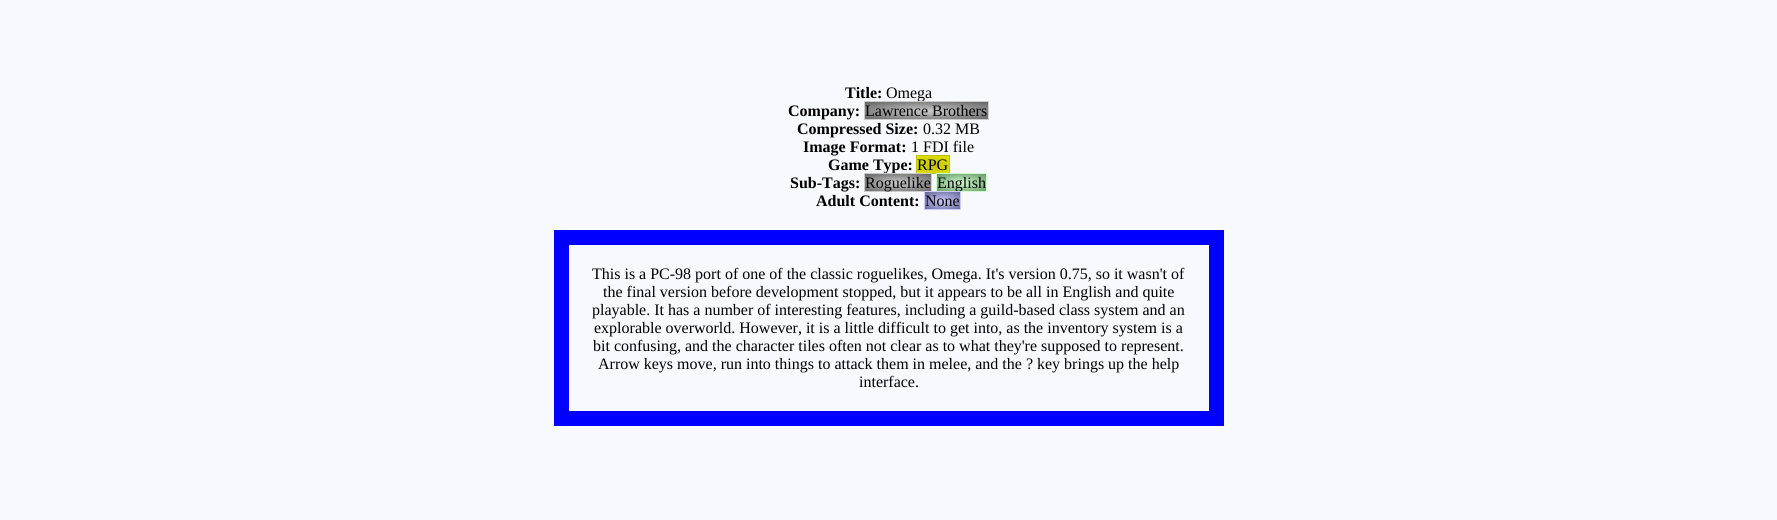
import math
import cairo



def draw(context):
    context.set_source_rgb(248 / 255, 248 / 255, 1)
    context.paint()
    gradient = cairo.RadialGradient(0, 0, 0, 0, 0, 1)
    gradient.set_matrix(cairo.Matrix(1 / 87, 0, 0, 1 / 12, -1 * 927 / 87, -1 * 111 / 12))
    gradient.add_color_stop_rgba(0, 204 / 255, 204 / 255, 204 / 255, 1)
    gradient.add_color_stop_rgba(1, 102 / 255, 102 / 255, 102 / 255, 1)
    context.set_source(gradient)
    context.rectangle(865, 102, 123, 17)
    context.fill()
    gradient = cairo.RadialGradient(0, 0, 0, 0, 0, 1)
    gradient.set_matrix(cairo.Matrix(1 / 23, 0, 0, 1 / 12, -1 * 933 / 23, -1 * 165 / 12))
    gradient.add_color_stop_rgba(0, 199 / 255, 191 / 255, 7 / 255, 1)
    gradient.add_color_stop_rgba(1, 221 / 255, 229 / 255, 0, 1)
    context.set_source(gradient)
    context.rectangle(917, 156, 32, 17)
    context.fill()
    context.rectangle(916.5, 155.5, 33, 18)
    context.set_source_rgb(199 / 255, 191 / 255, 7 / 255)
    context.set_line_width(1)
    context.stroke()
    gradient = cairo.RadialGradient(0, 0, 0, 0, 0, 1)
    gradient.set_matrix(cairo.Matrix(1 / 47, 0, 0, 1 / 12, -1 * 898 / 47, -1 * 183 / 12))
    gradient.add_color_stop_rgba(0, 204 / 255, 204 / 255, 204 / 255, 1)
    gradient.add_color_stop_rgba(1, 102 / 255, 102 / 255, 102 / 255, 1)
    context.set_source(gradient)
    context.rectangle(865, 174, 66, 17)
    context.fill()
    gradient = cairo.RadialGradient(0, 0, 0, 0, 0, 1)
    gradient.set_matrix(cairo.Matrix(1 / 35, 0, 0, 1 / 12, -1 * 962 / 35, -1 * 183 / 12))
    gradient.add_color_stop_rgba(0, 204 / 255, 1, 204 / 255, 1)
    gradient.add_color_stop_rgba(1, 102 / 255, 153 / 255, 102 / 255, 1)
    context.set_source(gradient)
    context.rectangle(937, 174, 49, 17)
    context.fill()
    context.rectangle(936.5, 173.5, 50, 18)
    context.set_source_rgb(204 / 255, 1, 204 / 255)
    context.stroke()
    gradient = cairo.RadialGradient(0, 0, 0, 0, 0, 1)
    gradient.set_matrix(cairo.Matrix(1 / 25, 0, 0, 1 / 12, -1 * 943 / 25, -1 * 201 / 12))
    gradient.add_color_stop_rgba(0, 204 / 255, 204 / 255, 1, 1)
    gradient.add_color_stop_rgba(1, 102 / 255, 102 / 255, 153 / 255, 1)
    context.set_source(gradient)
    context.rectangle(925, 192, 35, 17)
    context.fill()
    context.rectangle(561.5, 237.5, 655, 181)
    context.set_source_rgb(0, 0, 1)
    context.set_line_width(15)
    context.stroke()
    context.select_font_face("Liberation Serif", cairo.FontSlant.NORMAL, cairo.FontWeight.BOLD)
    context.set_font_size(16)
    context.set_source_rgb(0, 0, 0)
    context.move_to(845, 98)
    context.show_text("Title:")
    context.select_font_face("Liberation Serif")
    context.move_to(886, 98)
    context.show_text("Omega")
    context.select_font_face("Liberation Serif", cairo.FontSlant.NORMAL, cairo.FontWeight.BOLD)
    context.move_to(788, 116)
    context.show_text("Company:")
    context.rectangle(864.5, 101.5, 124, 18)
    context.set_source_rgb(204 / 255, 204 / 255, 204 / 255)
    context.set_line_width(1)
    context.stroke()
    context.select_font_face("Liberation Serif")
    context.set_source_rgb(0, 0, 0)
    context.move_to(865, 116)
    context.show_text("Lawrence Brothers")
    context.select_font_face("Liberation Serif", cairo.FontSlant.NORMAL, cairo.FontWeight.BOLD)
    context.move_to(797, 134)
    context.show_text("Compressed Size:")
    context.select_font_face("Liberation Serif")
    context.move_to(923, 134)
    context.show_text("0.32 MB")
    context.select_font_face("Liberation Serif", cairo.FontSlant.NORMAL, cairo.FontWeight.BOLD)
    context.move_to(803, 152)
    context.show_text("Image Format:")
    context.select_font_face("Liberation Serif")
    context.move_to(911, 152)
    context.show_text("1 FDI file")
    context.select_font_face("Liberation Serif", cairo.FontSlant.NORMAL, cairo.FontWeight.BOLD)
    context.move_to(828, 170)
    context.show_text("Game Type:")
    context.select_font_face("Liberation Serif")
    context.move_to(917, 170)
    context.show_text("RPG")
    context.select_font_face("Liberation Serif", cairo.FontSlant.NORMAL, cairo.FontWeight.BOLD)
    context.move_to(790, 188)
    context.show_text("Sub-Tags:")
    context.rectangle(864.5, 173.5, 67, 18)
    context.set_source_rgb(204 / 255, 204 / 255, 204 / 255)
    context.stroke()
    context.select_font_face("Liberation Serif")
    context.set_source_rgb(0, 0, 0)
    context.move_to(865, 188)
    context.show_text("Roguelike")
    context.move_to(937, 188)
    context.show_text("English")
    context.select_font_face("Liberation Serif", cairo.FontSlant.NORMAL, cairo.FontWeight.BOLD)
    context.move_to(816, 206)
    context.show_text("Adult Content:")
    context.rectangle(924.5, 191.5, 36, 18)
    context.set_source_rgb(204 / 255, 204 / 255, 1)
    context.stroke()
    context.select_font_face("Liberation Serif")
    context.set_source_rgb(0, 0, 0)
    context.move_to(925, 206)
    context.show_text("None")
    context.move_to(592, 279)
    context.show_text("This is a PC-98 port of one of the classic roguelikes, Omega. It's version 0.75, so it wasn't of")
    context.move_to(603, 297)
    context.show_text("the final version before development stopped, but it appears to be all in English and quite")
    context.move_to(592, 315)
    context.show_text("playable. It has a number of interesting features, including a guild-based class system and an")
    context.move_to(594, 333)
    context.show_text("explorable overworld. However, it is a little difficult to get into, as the inventory system is a")
    context.move_to(593, 351)
    context.show_text("bit confusing, and the character tiles often not clear as to what they're supposed to represent.")
    context.move_to(598, 369)
    context.show_text("Arrow keys move, run into things to attack them in melee, and the ? key brings up the help")
    context.move_to(859, 387)
    context.show_text("interface.")


surface = cairo.ImageSurface(cairo.Format.RGB24, 1777, 520)
context = cairo.Context(surface)
options = cairo.FontOptions()
options.set_hint_metrics(cairo.HintMetrics.OFF)
options.set_hint_style(cairo.HintStyle.NONE)
context.set_font_options(options)
context.set_miter_limit(4)
draw(context)
surface.write_to_png("out.png")
